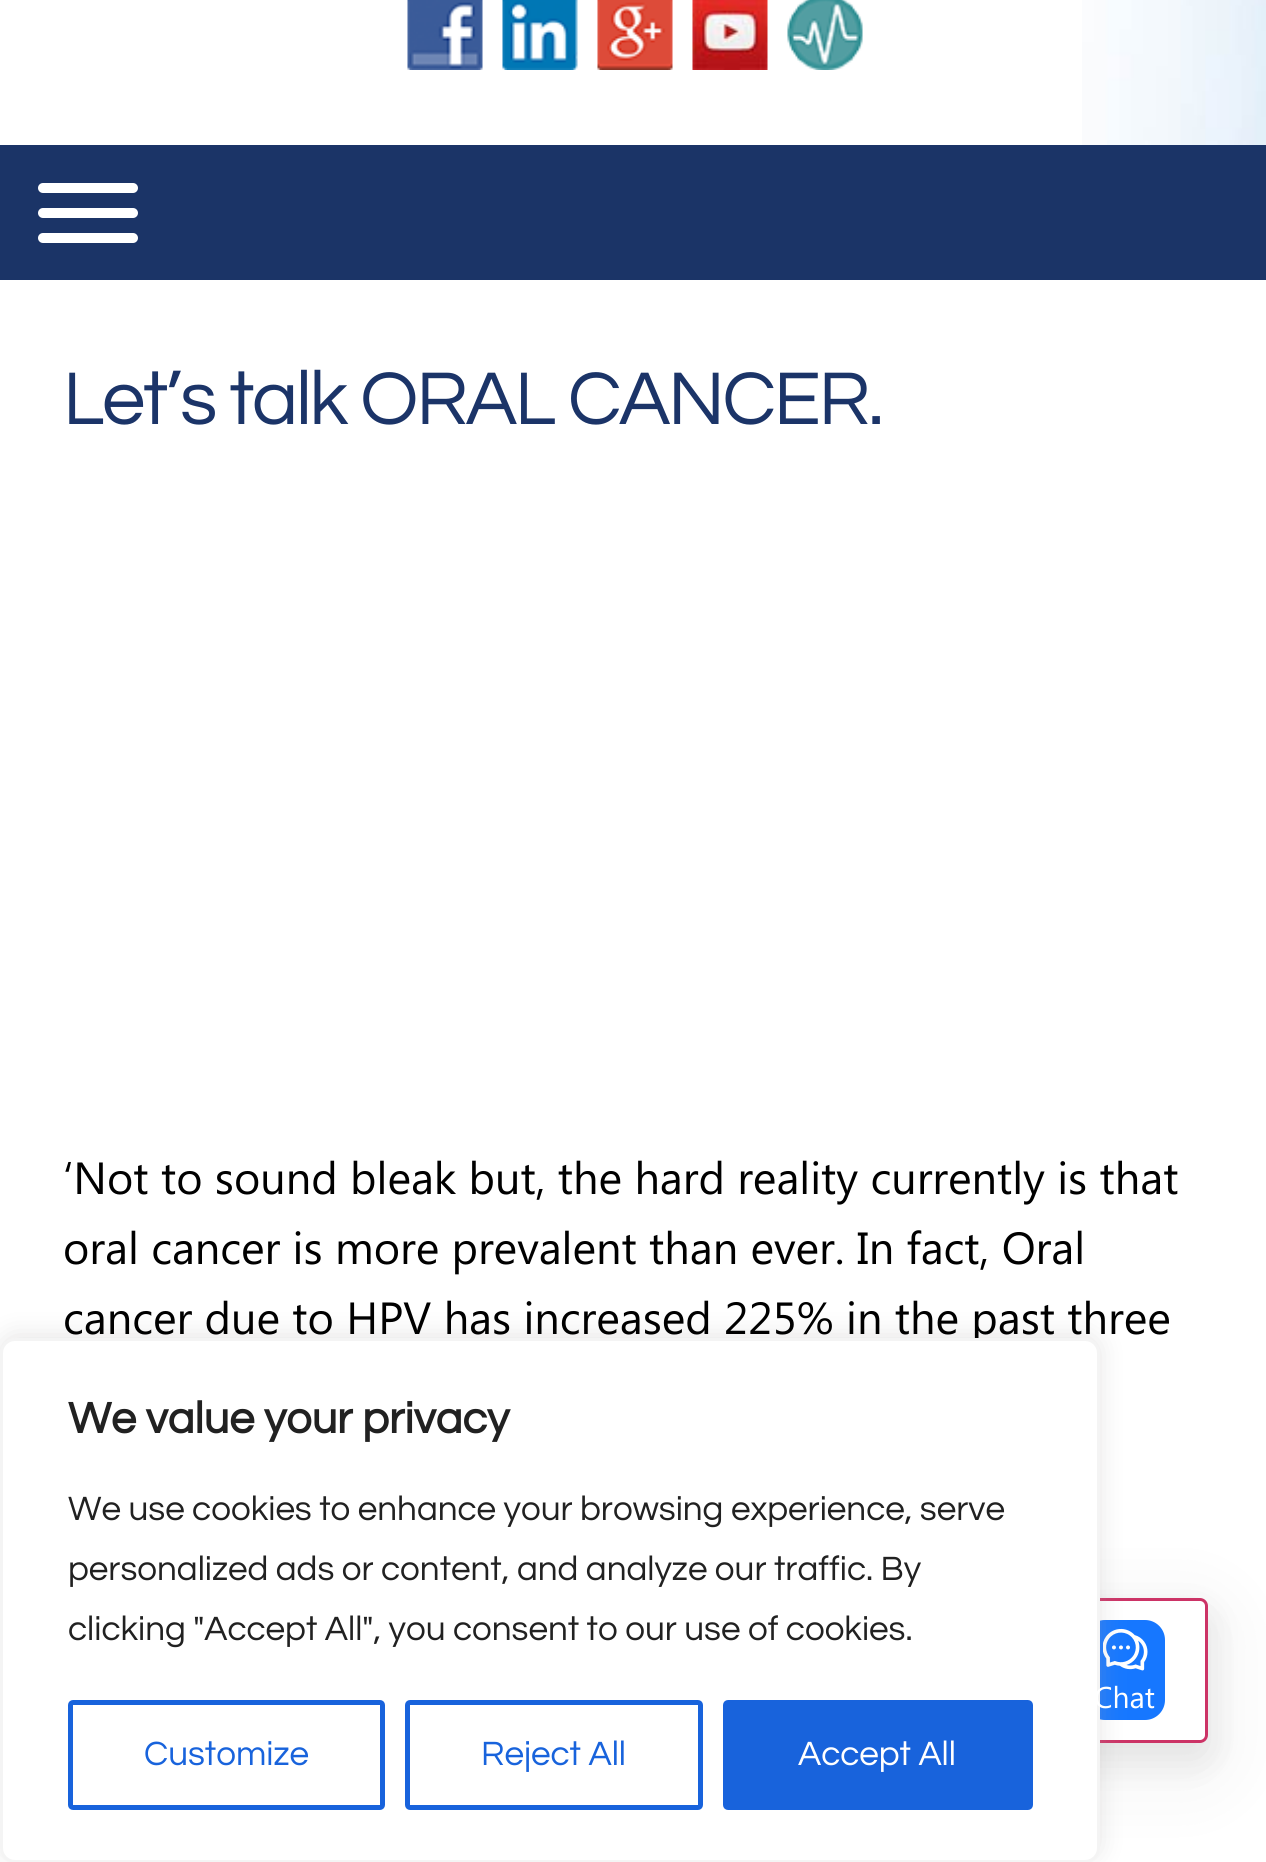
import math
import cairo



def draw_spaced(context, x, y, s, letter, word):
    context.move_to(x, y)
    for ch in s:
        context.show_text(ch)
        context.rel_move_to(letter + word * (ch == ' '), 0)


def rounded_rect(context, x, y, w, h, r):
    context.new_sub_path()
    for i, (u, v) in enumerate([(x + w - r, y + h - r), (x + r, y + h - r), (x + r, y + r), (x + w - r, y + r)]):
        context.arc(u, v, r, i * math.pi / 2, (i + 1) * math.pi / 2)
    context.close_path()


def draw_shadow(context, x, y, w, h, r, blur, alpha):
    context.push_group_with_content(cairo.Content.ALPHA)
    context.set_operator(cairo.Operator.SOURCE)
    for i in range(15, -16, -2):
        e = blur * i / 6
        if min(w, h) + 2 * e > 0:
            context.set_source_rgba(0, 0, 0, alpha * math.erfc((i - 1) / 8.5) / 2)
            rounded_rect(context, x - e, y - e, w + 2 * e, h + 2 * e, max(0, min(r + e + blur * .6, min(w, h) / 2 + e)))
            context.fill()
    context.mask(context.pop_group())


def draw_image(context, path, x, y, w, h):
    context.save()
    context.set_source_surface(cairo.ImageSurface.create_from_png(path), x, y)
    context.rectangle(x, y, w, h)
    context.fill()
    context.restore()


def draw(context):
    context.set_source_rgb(1, 1, 1)
    context.paint()
    draw_image(context, "images/1.png", 1082, 0, 184, 145)
    draw_image(context, "images/2.png", 407, 0, 76, 70)
    draw_image(context, "images/3.png", 502, 0, 76, 70)
    draw_image(context, "images/4.png", 597, 0, 76, 70)
    draw_image(context, "images/5.png", 692, 0, 76, 70)
    draw_image(context, "images/6.png", 787, 0, 76, 70)
    context.set_source_rgb(27 / 255, 52 / 255, 103 / 255)
    context.rectangle(0, 145, 1266, 135)
    context.fill()
    context.set_source_rgb(1, 1, 1)
    rounded_rect(context, 38, 208, 100, 10, 5)
    context.fill()
    rounded_rect(context, 38, 183, 100, 10, 5)
    context.fill()
    rounded_rect(context, 38, 233, 100, 10, 5)
    context.fill()
    context.save()
    context.set_fill_rule(cairo.FillRule.EVEN_ODD)
    context.new_path()
    context.move_to(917, 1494)
    context.line_to(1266, 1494)
    context.line_to(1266, 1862)
    context.line_to(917, 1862)
    context.close_path()
    context.move_to(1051, 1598)
    context.line_to(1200, 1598)
    context.curve_to(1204.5, 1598, 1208, 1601.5, 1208, 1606)
    context.line_to(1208, 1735)
    context.curve_to(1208, 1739.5, 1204.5, 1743, 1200, 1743)
    context.line_to(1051, 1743)
    context.curve_to(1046.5, 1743, 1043, 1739.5, 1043, 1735)
    context.line_to(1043, 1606)
    context.curve_to(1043, 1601.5, 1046.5, 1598, 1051, 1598)
    context.close_path()
    context.clip()
    context.set_source_rgb(0, 0, 0)
    draw_shadow(context, 1023, 1600, 205, 185, 28, 35, 0.05)
    context.restore()
    context.save()
    context.set_fill_rule(cairo.FillRule.EVEN_ODD)
    context.new_path()
    context.move_to(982, 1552)
    context.line_to(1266, 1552)
    context.line_to(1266, 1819)
    context.line_to(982, 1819)
    context.close_path()
    context.move_to(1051, 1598)
    context.line_to(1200, 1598)
    context.curve_to(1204.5, 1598, 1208, 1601.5, 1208, 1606)
    context.line_to(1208, 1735)
    context.curve_to(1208, 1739.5, 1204.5, 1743, 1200, 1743)
    context.line_to(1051, 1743)
    context.curve_to(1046.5, 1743, 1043, 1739.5, 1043, 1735)
    context.line_to(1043, 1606)
    context.curve_to(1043, 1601.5, 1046.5, 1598, 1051, 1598)
    context.close_path()
    context.clip()
    context.set_source_rgb(0, 0, 0)
    draw_shadow(context, 1043, 1613, 165, 145, 8, 20, 0.08)
    context.restore()
    rounded_rect(context, 1044.5, 1599.5, 162, 142, 6.5)
    context.set_source_rgb(204 / 255, 51 / 255, 102 / 255)
    context.set_line_width(3)
    context.stroke()
    context.set_source_rgb(22 / 255, 119 / 255, 1)
    rounded_rect(context, 1085, 1620, 80, 100, 20)
    context.fill()
    draw_image(context, "images/7.png", 1103, 1628, 45, 43)
    context.set_source_rgb(172 / 255, 171 / 255, 171 / 255)
    draw_shadow(context, 0, 1335, 1100, 525, 15, 12.5, 0.3)
    context.select_font_face("Questrial")
    context.set_font_size(77.5)
    context.set_source_rgb(27 / 255, 52 / 255, 104 / 255)
    draw_spaced(context, 63, 424, "Let’s talk ORAL CANCER.", -2.3, 0)
    context.select_font_face("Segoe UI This")
    context.set_font_size(45)
    context.set_source_rgb(0, 0, 0)
    context.move_to(63, 1194)
    context.show_text("‘Not to sound bleak but, the hard reality currently is that")
    context.move_to(63, 1264)
    context.show_text("oral cancer is more prevalent than ever. In fact, Oral")
    context.move_to(63, 1334)
    context.show_text("cancer due to HPV has increased 225% in the past three")
    context.set_source_rgb(1, 1, 1)
    rounded_rect(context, 1.5, 1339.5, 1097, 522, 13.5)
    context.fill_preserve()
    context.set_source_rgb(244 / 255, 244 / 255, 244 / 255)
    context.stroke()
    context.select_font_face("Questrial", cairo.FontSlant.NORMAL, cairo.FontWeight.BOLD)
    context.set_source_rgb(33 / 255, 33 / 255, 33 / 255)
    context.move_to(68, 1433)
    context.show_text("We value your privacy")
    context.select_font_face("Questrial")
    context.set_font_size(35)
    context.move_to(68, 1520)
    context.show_text("We use cookies to enhance your browsing experience, serve")
    context.move_to(68, 1580)
    context.show_text("personalized ads or content, and analyze our traffic. By")
    context.move_to(68, 1640)
    context.show_text("clicking \"Accept All\", you consent to our use of cookies.")
    rounded_rect(context, 70.5, 1702.5, 312, 105, 2.5)
    context.set_source_rgb(24 / 255, 99 / 255, 220 / 255)
    context.set_line_width(5)
    context.stroke()
    context.move_to(144, 1765)
    context.show_text("Customize")
    rounded_rect(context, 407.5, 1702.5, 293, 105, 2.5)
    context.stroke()
    context.move_to(481, 1765)
    context.show_text("Reject All")
    rounded_rect(context, 725.5, 1702.5, 305, 105, 2.5)
    context.fill_preserve()
    context.stroke()
    context.set_source_rgb(1, 1, 1)
    context.move_to(798, 1765)
    context.show_text("Accept All")
    context.select_font_face("Segoe UI This")
    context.set_font_size(30)
    context.move_to(1094, 1708)
    context.show_text("Chat")


surface = cairo.ImageSurface(cairo.Format.RGB24, 1266, 1862)
context = cairo.Context(surface)
options = cairo.FontOptions()
options.set_hint_metrics(cairo.HintMetrics.OFF)
options.set_hint_style(cairo.HintStyle.NONE)
context.set_font_options(options)
context.set_miter_limit(4)
draw(context)
surface.write_to_png("out.png")
